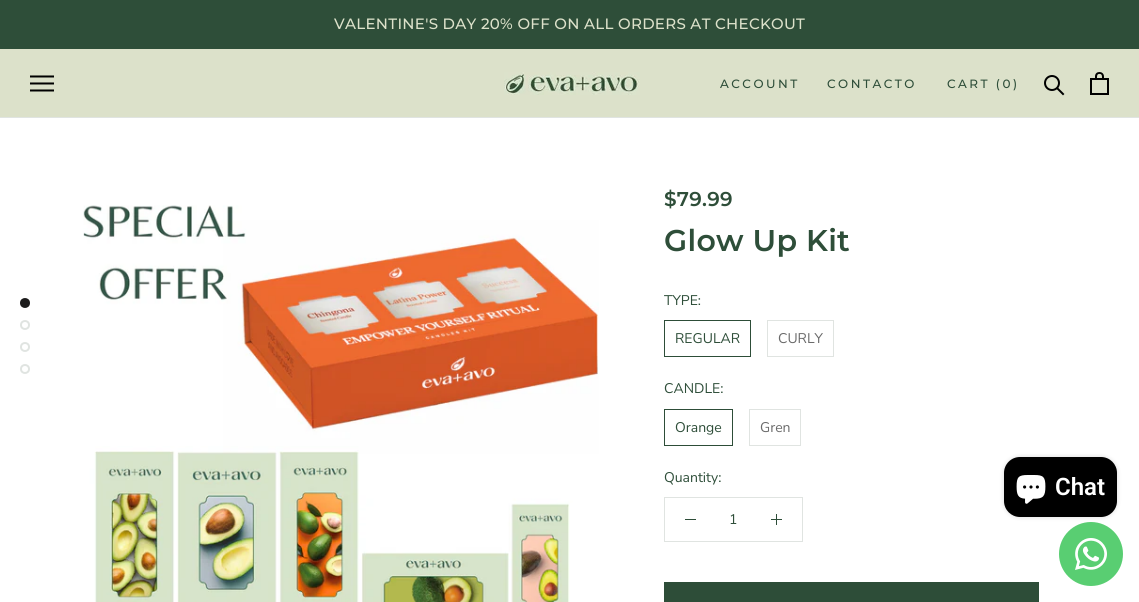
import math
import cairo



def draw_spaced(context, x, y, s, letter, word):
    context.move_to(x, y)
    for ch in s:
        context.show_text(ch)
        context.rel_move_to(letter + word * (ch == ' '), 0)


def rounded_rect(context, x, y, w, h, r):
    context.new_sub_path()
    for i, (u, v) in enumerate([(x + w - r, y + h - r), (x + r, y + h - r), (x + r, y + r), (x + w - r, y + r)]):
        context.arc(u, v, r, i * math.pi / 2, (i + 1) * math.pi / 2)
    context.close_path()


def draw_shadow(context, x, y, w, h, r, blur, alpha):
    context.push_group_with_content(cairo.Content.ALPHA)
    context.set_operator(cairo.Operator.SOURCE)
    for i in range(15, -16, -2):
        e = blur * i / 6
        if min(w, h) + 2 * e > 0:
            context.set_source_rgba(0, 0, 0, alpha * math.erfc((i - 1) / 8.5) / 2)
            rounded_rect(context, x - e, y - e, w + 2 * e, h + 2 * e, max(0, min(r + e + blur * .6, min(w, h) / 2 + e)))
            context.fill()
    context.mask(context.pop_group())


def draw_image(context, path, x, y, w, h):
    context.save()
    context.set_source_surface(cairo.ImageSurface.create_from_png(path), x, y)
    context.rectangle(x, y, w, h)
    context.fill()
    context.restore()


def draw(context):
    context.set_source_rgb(1, 1, 1)
    context.paint()
    context.set_source_rgb(46 / 255, 78 / 255, 57 / 255)
    context.rectangle(0, 0, 1139, 49)
    context.fill()
    context.set_source_rgb(220 / 255, 225 / 255, 202 / 255)
    context.rectangle(0, 49, 1139, 68)
    context.fill()
    context.set_source_rgb(224 / 255, 228 / 255, 225 / 255)
    context.rectangle(0, 117, 1139, 1)
    context.fill()
    draw_image(context, "images/1.png", 30, 75, 24, 17)
    draw_image(context, "images/2.png", 504, 72, 136, 23)
    context.new_path()
    context.move_to(1063, 94)
    context.line_to(1057.5, 88.5)
    context.set_source_rgb(0, 0, 0)
    context.set_line_cap(cairo.LineCap.SQUARE)
    context.stroke()
    context.arc(1052, 83, 7, 0, 2 * math.pi)
    context.set_line_cap(cairo.LineCap.BUTT)
    context.stroke()
    draw_image(context, "images/3.png", 1090, 72, 19, 23)
    context.set_source_rgb(28 / 255, 27 / 255, 27 / 255)
    context.arc(25, 303, 4, 0, 2 * math.pi)
    context.fill_preserve()
    context.stroke()
    context.arc(25, 325, 4, 0, 2 * math.pi)
    context.set_source_rgb(224 / 255, 228 / 255, 225 / 255)
    context.stroke()
    context.arc(25, 347, 4, 0, 2 * math.pi)
    context.stroke()
    context.arc(25, 369, 4, 0, 2 * math.pi)
    context.stroke()
    draw_image(context, "images/4.png", 83, 205, 516, 397)
    context.rectangle(664.5, 320.5, 86, 36)
    context.set_source_rgb(45 / 255, 77 / 255, 56 / 255)
    context.set_line_width(1)
    context.stroke()
    context.rectangle(767.5, 320.5, 66, 36)
    context.set_source_rgb(224 / 255, 228 / 255, 225 / 255)
    context.stroke()
    context.rectangle(664.5, 409.5, 68, 36)
    context.set_source_rgb(45 / 255, 77 / 255, 56 / 255)
    context.stroke()
    context.rectangle(749.5, 409.5, 51, 36)
    context.set_source_rgb(224 / 255, 228 / 255, 225 / 255)
    context.stroke()
    context.rectangle(664.5, 497.5, 138, 44)
    context.stroke()
    context.set_source_rgb(45 / 255, 77 / 255, 56 / 255)
    context.rectangle(685, 519, 11, 1)
    context.fill()
    context.rectangle(776, 514, 1, 11)
    context.fill()
    context.rectangle(771, 519, 11, 1)
    context.fill()
    context.rectangle(664.5, 582.5, 374, 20)
    context.stroke()
    context.rectangle(665, 583, 373, 19)
    context.fill()
    context.set_source_rgb(89 / 255, 206 / 255, 114 / 255)
    context.arc(1091, 554, 32, 0, 2 * math.pi)
    context.fill()
    context.set_source_rgb(0, 0, 0)
    draw_shadow(context, 1004, 457, 113, 60, 16, 2.5, 0.15)
    context.set_source_rgb(0, 0, 0)
    rounded_rect(context, 1004, 457, 113, 60, 16)
    context.fill()
    draw_image(context, "images/5.png", 1016, 475, 30, 29)
    draw_image(context, "images/6.png", 1075, 538, 32, 32)
    context.select_font_face("Montserrat Medium")
    context.set_font_size(15)
    context.set_source_rgb(220 / 255, 225 / 255, 202 / 255)
    draw_spaced(context, 334, 29, "VALENTINE'S DAY 20% OFF ON ALL ORDERS AT CHECKOUT", 0.3, 0)
    context.set_font_size(12)
    context.set_source_rgb(46 / 255, 78 / 255, 57 / 255)
    draw_spaced(context, 720, 88, "ACCOUNT", 2.5, 0)
    draw_spaced(context, 827, 88, "CONTACTO", 2.5, 0)
    draw_spaced(context, 947, 88, "CART (0)", 2.5, 0)
    context.select_font_face("Montserrat SemiBold")
    context.set_font_size(20)
    draw_spaced(context, 664, 206, "$79.99", 0.25, 0)
    context.set_font_size(30)
    draw_spaced(context, 664, 251, "Glow Up Kit", 0.3, 0)
    context.select_font_face("Nunito Sans")
    context.set_font_size(14)
    context.move_to(664, 305)
    context.show_text("TYPE:")
    context.move_to(675, 343)
    context.show_text("REGULAR")
    context.set_source_rgb(106 / 255, 106 / 255, 106 / 255)
    context.move_to(778, 343)
    context.show_text("CURLY")
    context.set_source_rgb(46 / 255, 78 / 255, 57 / 255)
    context.move_to(664, 393)
    context.show_text("CANDLE:")
    context.move_to(675, 432)
    context.show_text("Orange")
    context.set_source_rgb(106 / 255, 106 / 255, 106 / 255)
    context.move_to(760, 432)
    context.show_text("Gren")
    context.set_source_rgb(46 / 255, 78 / 255, 57 / 255)
    context.move_to(664, 482)
    context.show_text("Quantity:")
    context.move_to(729, 524)
    context.show_text("1")
    context.select_font_face("Roboto SemiBold")
    context.set_font_size(24)
    context.set_source_rgb(1, 1, 1)
    context.move_to(1055, 495)
    context.show_text("Chat")


surface = cairo.ImageSurface(cairo.Format.RGB24, 1139, 602)
context = cairo.Context(surface)
options = cairo.FontOptions()
options.set_hint_metrics(cairo.HintMetrics.OFF)
options.set_hint_style(cairo.HintStyle.NONE)
context.set_font_options(options)
context.set_miter_limit(4)
draw(context)
surface.write_to_png("out.png")
